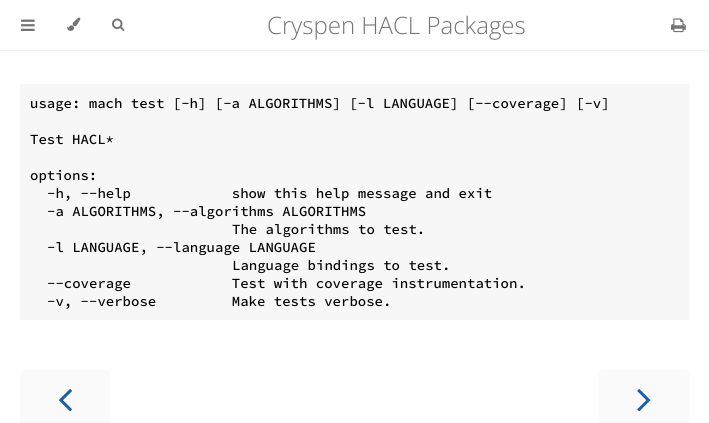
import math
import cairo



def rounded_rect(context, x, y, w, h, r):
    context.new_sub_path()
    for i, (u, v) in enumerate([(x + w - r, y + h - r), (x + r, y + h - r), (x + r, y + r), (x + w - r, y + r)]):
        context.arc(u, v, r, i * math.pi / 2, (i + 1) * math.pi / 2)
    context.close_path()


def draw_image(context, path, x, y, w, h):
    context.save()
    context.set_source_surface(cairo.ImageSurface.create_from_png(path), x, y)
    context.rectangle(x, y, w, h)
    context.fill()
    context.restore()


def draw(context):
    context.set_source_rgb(1, 1, 1)
    context.paint()
    context.set_source_rgb(242 / 255, 242 / 255, 242 / 255)
    context.rectangle(0, 50, 709, 1)
    context.fill()
    draw_image(context, "images/1.png", 21, 19, 14, 12)
    draw_image(context, "images/2.png", 67, 17, 14, 14)
    draw_image(context, "images/3.png", 112, 18, 13, 13)
    draw_image(context, "images/4.png", 671, 18, 15, 15)
    context.set_source_rgb(246 / 255, 247 / 255, 246 / 255)
    context.rectangle(20, 84, 669, 236)
    context.fill()
    context.set_source_rgb(250 / 255, 250 / 255, 250 / 255)
    rounded_rect(context, 20, 370, 90, 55, 5)
    context.fill()
    draw_image(context, "images/5.png", 59, 389, 13, 23)
    rounded_rect(context, 599, 370, 90, 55, 5)
    context.fill()
    draw_image(context, "images/6.png", 637, 389, 14, 23)
    context.select_font_face("Open Sans Light")
    context.set_font_size(24)
    context.set_source_rgb(116 / 255, 116 / 255, 116 / 255)
    context.move_to(267, 34)
    context.show_text("Cryspen HACL Packages")
    context.select_font_face("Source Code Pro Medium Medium")
    context.set_font_size(14)
    context.set_source_rgb(0, 0, 0)
    context.move_to(30, 108)
    context.show_text("usage: mach test [-h] [-a ALGORITHMS] [-l LANGUAGE] [--coverage] [-v]")
    context.move_to(30, 144)
    context.show_text("Test HACL*")
    context.move_to(30, 180)
    context.show_text("options:")
    context.move_to(47, 198)
    context.show_text("-h, --help            show this help message and exit")
    context.move_to(47, 216)
    context.show_text("-a ALGORITHMS, --algorithms ALGORITHMS")
    context.move_to(232, 234)
    context.show_text("The algorithms to test.")
    context.move_to(47, 252)
    context.show_text("-l LANGUAGE, --language LANGUAGE")
    context.move_to(232, 270)
    context.show_text("Language bindings to test.")
    context.move_to(47, 288)
    context.show_text("--coverage            Test with coverage instrumentation.")
    context.move_to(47, 306)
    context.show_text("-v, --verbose         Make tests verbose.")


surface = cairo.ImageSurface(cairo.Format.RGB24, 709, 423)
context = cairo.Context(surface)
options = cairo.FontOptions()
options.set_hint_metrics(cairo.HintMetrics.OFF)
options.set_hint_style(cairo.HintStyle.NONE)
context.set_font_options(options)
context.set_miter_limit(4)
draw(context)
surface.write_to_png("out.png")
